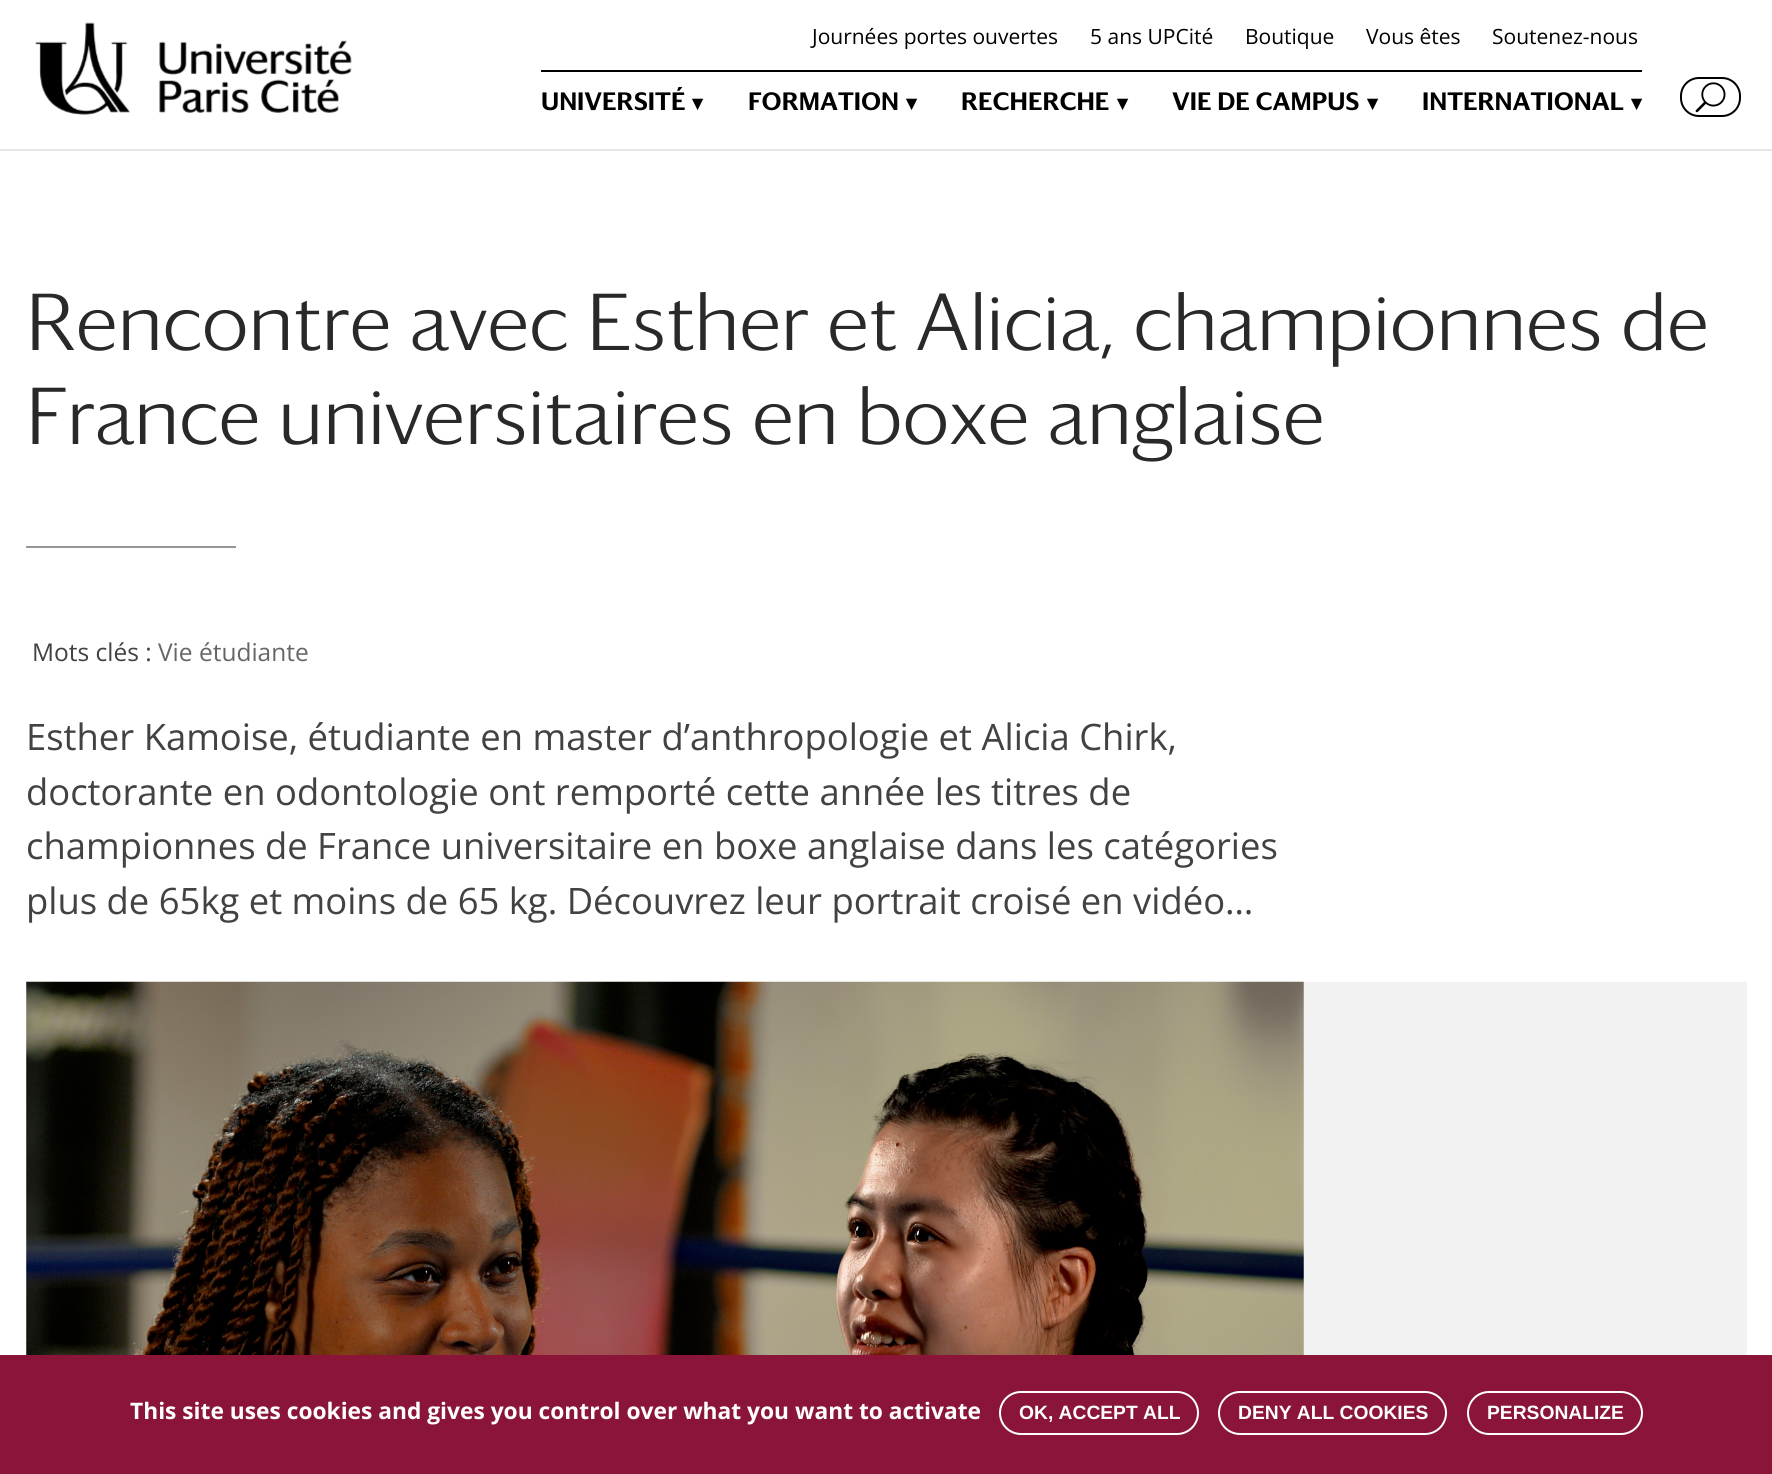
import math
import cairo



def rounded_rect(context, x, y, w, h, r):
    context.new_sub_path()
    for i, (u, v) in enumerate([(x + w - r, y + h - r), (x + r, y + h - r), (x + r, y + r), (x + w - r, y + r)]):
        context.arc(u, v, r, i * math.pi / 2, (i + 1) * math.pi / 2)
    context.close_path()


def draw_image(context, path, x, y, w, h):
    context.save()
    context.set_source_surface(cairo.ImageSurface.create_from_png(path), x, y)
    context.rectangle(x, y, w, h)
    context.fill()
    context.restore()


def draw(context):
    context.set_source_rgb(1, 1, 1)
    context.paint()
    context.set_source_rgb(230 / 255, 230 / 255, 230 / 255)
    context.new_path()
    context.move_to(0, 149)
    context.line_to(0, 151)
    context.line_to(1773, 151)
    context.line_to(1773, 2)
    context.line_to(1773, 149)
    context.close_path()
    context.fill()
    draw_image(context, "images/1.png", 35, 22, 317, 93)
    context.set_source_rgb(0, 0, 0)
    context.rectangle(541, 70, 1101, 2)
    context.fill()
    rounded_rect(context, 1681, 78, 59, 38, 18)
    context.stroke()
    draw_image(context, "images/2.png", 1695, 82, 31, 31)
    context.set_source_rgb(150 / 255, 150 / 255, 150 / 255)
    context.rectangle(26, 546, 210, 2)
    context.fill()
    context.set_source_rgb(242 / 255, 242 / 255, 242 / 255)
    context.rectangle(26, 982, 1721, 373)
    context.fill()
    draw_image(context, "images/3.png", 26, 981, 1278, 374)
    context.set_source_rgb(138 / 255, 21 / 255, 56 / 255)
    context.rectangle(0, 1355, 1772, 119)
    context.fill()
    rounded_rect(context, 1000, 1392, 198, 42, 21)
    context.set_source_rgb(1, 1, 1)
    context.stroke()
    rounded_rect(context, 1219, 1392, 227, 42, 21)
    context.stroke()
    rounded_rect(context, 1468, 1392, 174, 42, 21)
    context.stroke()
    context.select_font_face("Open Sans")
    context.set_font_size(21)
    context.set_source_rgb(0, 0, 0)
    context.move_to(812, 44)
    context.show_text("Journées portes ouvertes")
    context.move_to(1090, 44)
    context.show_text("5 ans UPCité")
    context.move_to(1245, 44)
    context.show_text("Boutique")
    context.move_to(1366, 44)
    context.show_text("Vous êtes")
    context.move_to(1492, 44)
    context.show_text("Soutenez-nous")
    context.select_font_face("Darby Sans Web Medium")
    context.set_font_size(24.5)
    context.move_to(541, 110)
    context.show_text("UNIVERSITÉ")
    context.select_font_face("DejaVu Sans", cairo.FontSlant.NORMAL, cairo.FontWeight.BOLD)
    context.set_font_size(21)
    context.move_to(692, 110)
    context.show_text("▾")
    context.select_font_face("Darby Sans Web Medium")
    context.set_font_size(24.5)
    context.move_to(748, 110)
    context.show_text("FORMATION")
    context.select_font_face("DejaVu Sans", cairo.FontSlant.NORMAL, cairo.FontWeight.BOLD)
    context.set_font_size(21)
    context.move_to(906, 110)
    context.show_text("▾")
    context.select_font_face("Darby Sans Web Medium")
    context.set_font_size(24.5)
    context.move_to(961, 110)
    context.show_text("RECHERCHE")
    context.select_font_face("DejaVu Sans", cairo.FontSlant.NORMAL, cairo.FontWeight.BOLD)
    context.set_font_size(21)
    context.move_to(1117, 110)
    context.show_text("▾")
    context.select_font_face("Darby Sans Web Medium")
    context.set_font_size(24.5)
    context.move_to(1172, 110)
    context.show_text("VIE DE CAMPUS")
    context.select_font_face("DejaVu Sans", cairo.FontSlant.NORMAL, cairo.FontWeight.BOLD)
    context.set_font_size(21)
    context.move_to(1367, 110)
    context.show_text("▾")
    context.select_font_face("Darby Sans Web Medium")
    context.set_font_size(24.5)
    context.move_to(1422, 110)
    context.show_text("INTERNATIONAL")
    context.select_font_face("DejaVu Sans", cairo.FontSlant.NORMAL, cairo.FontWeight.BOLD)
    context.set_font_size(21)
    context.move_to(1631, 110)
    context.show_text("▾")
    context.select_font_face("Darby Sans Web Light")
    context.set_font_size(78.4)
    context.set_source_rgb(41 / 255, 41 / 255, 41 / 255)
    context.move_to(26, 350)
    context.show_text("Rencontre avec Esther et Alicia, championnes de")
    context.move_to(26, 444)
    context.show_text("France universitaires en boxe anglaise")
    context.select_font_face("Open Sans")
    context.set_font_size(24.5)
    context.set_source_rgb(66 / 255, 66 / 255, 66 / 255)
    context.move_to(32, 661)
    context.show_text("Mots clés :")
    context.set_source_rgb(102 / 255, 102 / 255, 102 / 255)
    context.move_to(158, 661)
    context.show_text("Vie étudiante")
    context.set_font_size(36.4)
    context.set_source_rgb(66 / 255, 66 / 255, 66 / 255)
    context.move_to(26, 750)
    context.show_text("Esther Kamoise, étudiante en master d’anthropologie et Alicia Chirk,")
    context.move_to(26, 805)
    context.show_text("doctorante en odontologie ont remporté cette année les titres de")
    context.move_to(26, 859)
    context.show_text("championnes de France universitaire en boxe anglaise dans les catégories")
    context.move_to(26, 914)
    context.show_text("plus de 65kg et moins de 65 kg. Découvrez leur portrait croisé en vidéo…")
    context.select_font_face("Open Sans", cairo.FontSlant.NORMAL, cairo.FontWeight.BOLD)
    context.set_font_size(22.75)
    context.set_source_rgb(1, 1, 1)
    context.move_to(130, 1419)
    context.show_text("This site uses cookies and gives you control over what you want to activate")
    context.select_font_face("Liberation Sans", cairo.FontSlant.NORMAL, cairo.FontWeight.BOLD)
    context.set_font_size(19.25)
    context.move_to(1019, 1419)
    context.show_text("OK, ACCEPT ALL")
    context.move_to(1238, 1419)
    context.show_text("DENY ALL COOKIES")
    context.move_to(1487, 1419)
    context.show_text("PERSONALIZE")


surface = cairo.ImageSurface(cairo.Format.RGB24, 1772, 1474)
context = cairo.Context(surface)
options = cairo.FontOptions()
options.set_hint_metrics(cairo.HintMetrics.OFF)
options.set_hint_style(cairo.HintStyle.NONE)
context.set_font_options(options)
context.set_miter_limit(4)
draw(context)
surface.write_to_png("out.png")
